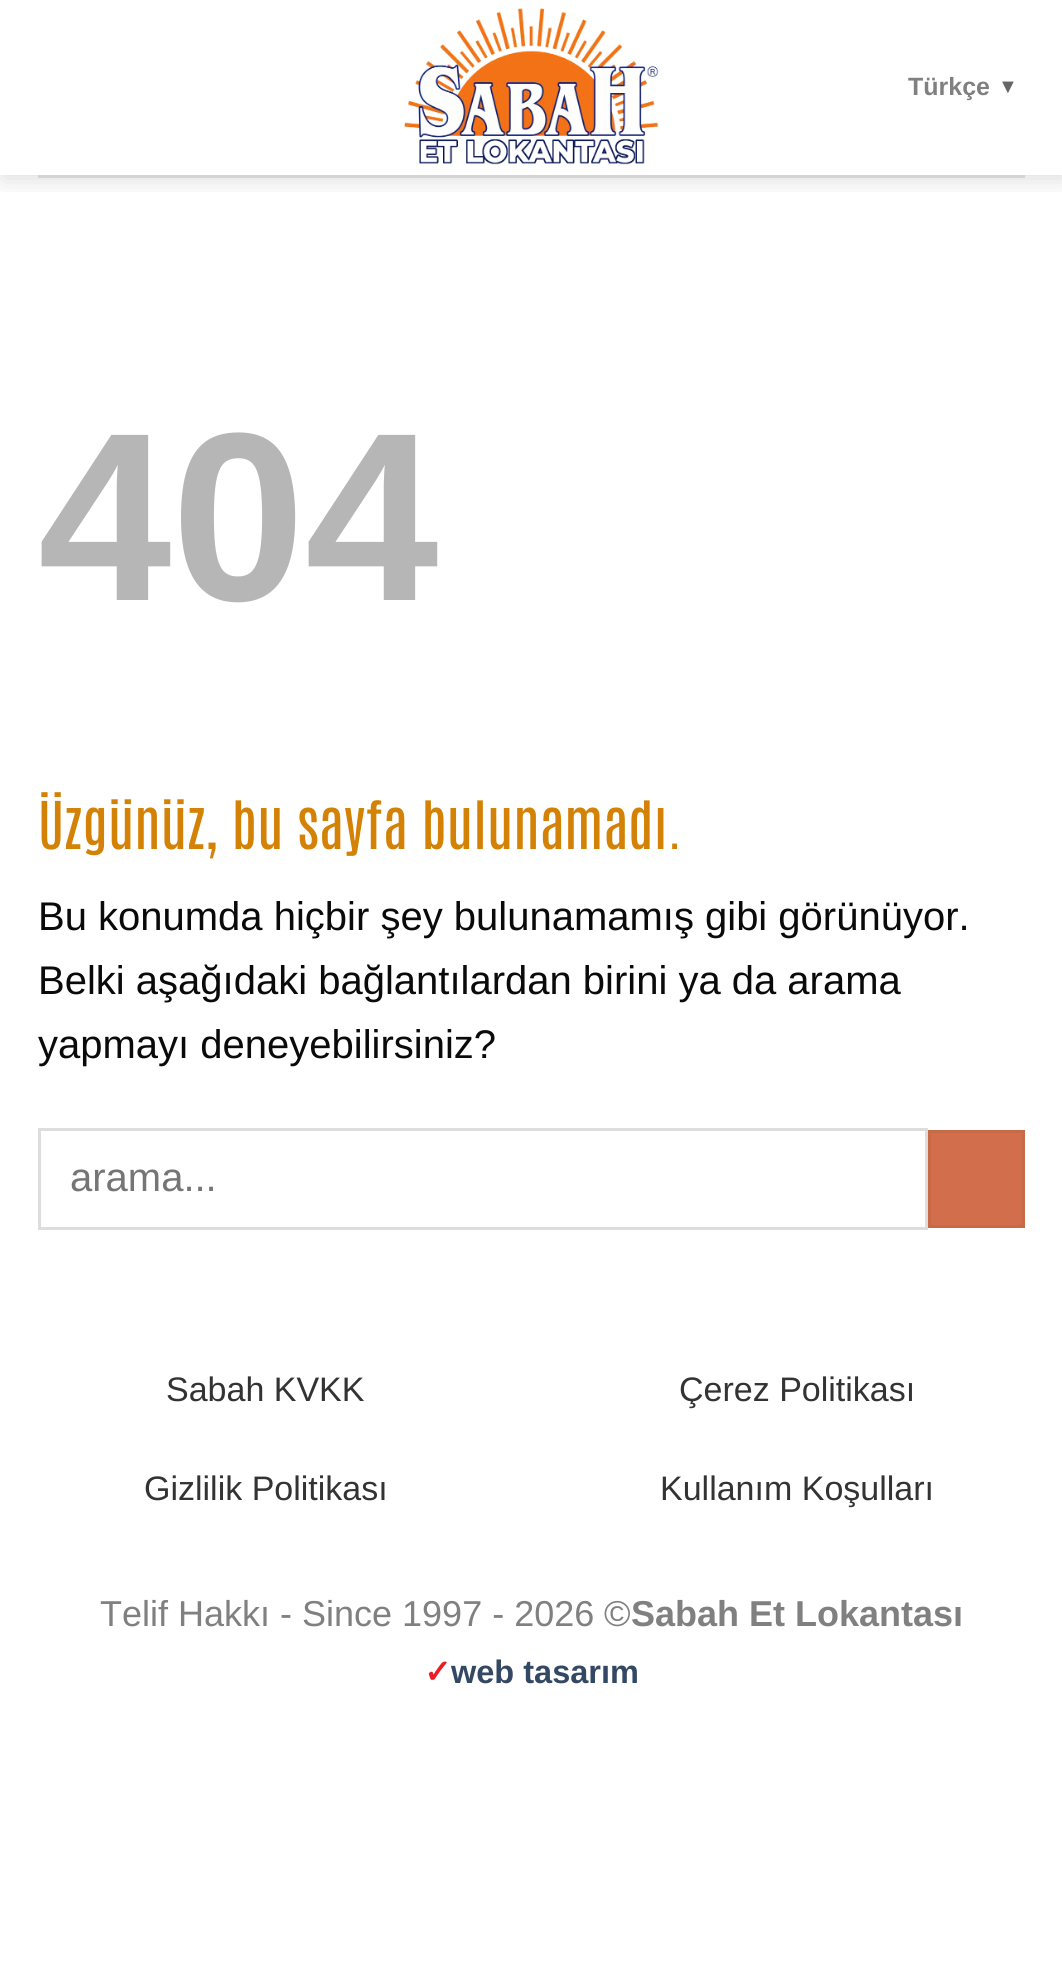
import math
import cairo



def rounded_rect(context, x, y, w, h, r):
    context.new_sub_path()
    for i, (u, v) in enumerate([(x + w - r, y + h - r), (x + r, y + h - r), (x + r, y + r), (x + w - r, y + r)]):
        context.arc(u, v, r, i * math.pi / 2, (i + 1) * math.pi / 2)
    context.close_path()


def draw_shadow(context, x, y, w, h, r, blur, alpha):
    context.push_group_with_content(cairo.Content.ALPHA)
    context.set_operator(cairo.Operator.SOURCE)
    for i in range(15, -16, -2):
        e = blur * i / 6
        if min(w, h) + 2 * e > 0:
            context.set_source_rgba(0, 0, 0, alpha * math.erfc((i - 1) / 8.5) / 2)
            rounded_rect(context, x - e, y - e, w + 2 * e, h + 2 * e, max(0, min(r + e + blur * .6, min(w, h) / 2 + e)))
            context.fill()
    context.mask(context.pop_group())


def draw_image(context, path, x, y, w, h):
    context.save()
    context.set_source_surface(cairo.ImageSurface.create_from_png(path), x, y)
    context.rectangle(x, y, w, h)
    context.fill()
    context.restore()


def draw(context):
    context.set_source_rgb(1, 1, 1)
    context.paint()
    context.save()
    context.rectangle(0, 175, 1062, 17)
    context.clip()
    context.set_source_rgb(0, 0, 0)
    draw_shadow(context, 3, 3, 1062, 175, 0, 12.5, 0.15)
    context.restore()
    draw_image(context, "images/1.png", 404, 8, 255, 157)
    context.set_source_rgb(212 / 255, 212 / 255, 212 / 255)
    context.rectangle(38, 175, 987, 3)
    context.fill()
    context.rectangle(39.5, 1129.5, 887, 99)
    context.set_source_rgb(221 / 255, 221 / 255, 221 / 255)
    context.set_line_width(3)
    context.stroke()
    context.set_source_rgb(210 / 255, 110 / 255, 75 / 255)
    context.rectangle(929.5, 1131.5, 94, 95)
    context.fill_preserve()
    context.set_source_rgb(200 / 255, 105 / 255, 71 / 255)
    context.stroke()
    context.select_font_face("Liberation Sans", cairo.FontSlant.NORMAL, cairo.FontWeight.BOLD)
    context.set_font_size(25)
    context.set_source_rgb(128 / 255, 128 / 255, 128 / 255)
    context.move_to(908, 95)
    context.show_text("Türkçe")
    context.set_font_size(20)
    context.set_source_rgb(102 / 255, 102 / 255, 102 / 255)
    context.move_to(998, 93)
    context.show_text("▼")
    context.set_font_size(240)
    context.set_source_rgb(182 / 255, 182 / 255, 182 / 255)
    context.move_to(38, 600)
    context.show_text("404")
    context.select_font_face("Antonio")
    context.set_font_size(56)
    context.set_source_rgb(212 / 255, 130 / 255, 6 / 255)
    context.move_to(38, 849)
    context.show_text("Üzgünüz, bu sayfa bulunamadı.")
    context.select_font_face("Liberation Sans")
    context.set_font_size(40)
    context.set_source_rgb(10 / 255, 10 / 255, 10 / 255)
    context.move_to(38, 930)
    context.show_text("Bu konumda hiçbir şey bulunamamış gibi görünüyor.")
    context.move_to(38, 994)
    context.show_text("Belki aşağıdaki bağlantılardan birini ya da arama")
    context.move_to(38, 1058)
    context.show_text("yapmayı deneyebilirsiniz?")
    context.set_source_rgb(117 / 255, 117 / 255, 117 / 255)
    context.move_to(70, 1191)
    context.show_text("arama...")
    context.set_font_size(34)
    context.set_source_rgb(51 / 255, 51 / 255, 51 / 255)
    context.move_to(166, 1401)
    context.show_text("Sabah KVKK")
    context.move_to(679, 1401)
    context.show_text("Çerez Politikası")
    context.move_to(144, 1500)
    context.show_text("Gizlilik Politikası")
    context.move_to(660, 1500)
    context.show_text("Kullanım Koşulları")
    context.set_font_size(36)
    context.set_source_rgb(128 / 255, 128 / 255, 128 / 255)
    context.move_to(100, 1626)
    context.show_text("Telif Hakkı - Since 1997 - 2026")
    context.select_font_face("Liberation Sans", cairo.FontSlant.NORMAL, cairo.FontWeight.BOLD)
    context.move_to(631, 1626)
    context.show_text("Sabah Et Lokantası")
    context.select_font_face("DejaVu Sans", cairo.FontSlant.NORMAL, cairo.FontWeight.BOLD)
    context.set_font_size(32.5)
    context.set_source_rgb(237 / 255, 28 / 255, 36 / 255)
    context.move_to(424, 1683)
    context.show_text("✓")
    context.select_font_face("Liberation Sans", cairo.FontSlant.NORMAL, cairo.FontWeight.BOLD)
    context.set_source_rgb(51 / 255, 72 / 255, 98 / 255)
    context.move_to(451, 1683)
    context.show_text("web tasarım")
    context.select_font_face("Liberation Sans")
    context.set_font_size(36)
    context.set_source_rgb(128 / 255, 128 / 255, 128 / 255)
    context.move_to(604, 1626)
    context.show_text("©")


surface = cairo.ImageSurface(cairo.Format.RGB24, 1062, 1972)
context = cairo.Context(surface)
options = cairo.FontOptions()
options.set_hint_metrics(cairo.HintMetrics.OFF)
options.set_hint_style(cairo.HintStyle.NONE)
context.set_font_options(options)
context.set_miter_limit(4)
draw(context)
surface.write_to_png("out.png")
